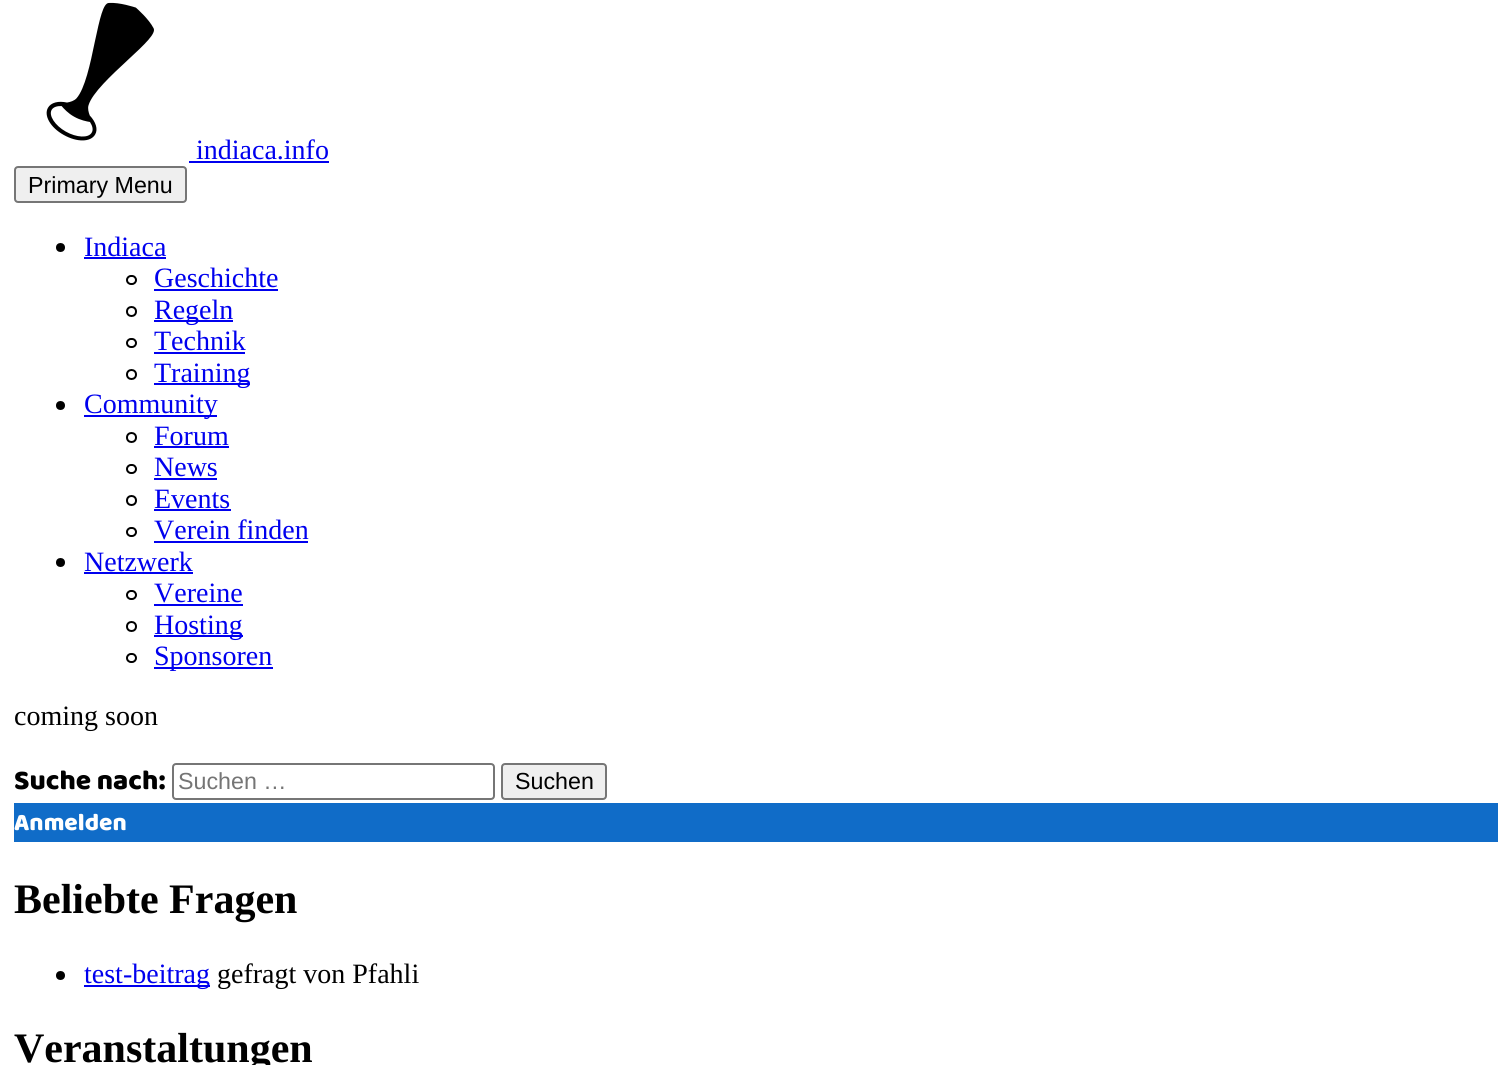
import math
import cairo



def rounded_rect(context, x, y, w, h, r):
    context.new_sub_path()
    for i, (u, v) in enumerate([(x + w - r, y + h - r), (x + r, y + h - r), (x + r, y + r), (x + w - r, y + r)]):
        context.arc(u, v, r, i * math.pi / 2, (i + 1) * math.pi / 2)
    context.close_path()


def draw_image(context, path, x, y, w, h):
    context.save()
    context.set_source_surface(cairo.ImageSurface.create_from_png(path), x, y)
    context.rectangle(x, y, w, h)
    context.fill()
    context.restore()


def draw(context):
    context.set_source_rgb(1, 1, 1)
    context.paint()
    draw_image(context, "images/1.png", 46, 2, 108, 139)
    context.set_source_rgb(0, 0, 238 / 255)
    context.rectangle(189, 161, 140, 2)
    context.fill()
    context.set_source_rgb(239 / 255, 239 / 255, 239 / 255)
    rounded_rect(context, 15, 167, 171, 35, 3)
    context.fill_preserve()
    context.set_source_rgb(118 / 255, 118 / 255, 118 / 255)
    context.stroke()
    context.set_source_rgb(0, 0, 0)
    context.arc(60.5, 247.5, 4.5, 0, 2 * math.pi)
    context.fill()
    context.set_source_rgb(0, 0, 238 / 255)
    context.rectangle(84, 257, 82, 2)
    context.fill()
    rounded_rect(context, 127, 276, 9, 8, 4)
    context.set_source_rgb(0, 0, 0)
    context.stroke()
    context.set_source_rgb(0, 0, 238 / 255)
    context.rectangle(154, 289, 124, 2)
    context.fill()
    context.arc(131.5, 311.5, 4.5, 0, 2 * math.pi)
    context.set_source_rgb(0, 0, 0)
    context.stroke()
    context.set_source_rgb(0, 0, 238 / 255)
    context.rectangle(154, 320, 79, 2)
    context.fill()
    rounded_rect(context, 127, 339, 9, 8, 4)
    context.set_source_rgb(0, 0, 0)
    context.stroke()
    context.set_source_rgb(0, 0, 238 / 255)
    context.rectangle(154, 352, 91, 2)
    context.fill()
    context.arc(131.5, 374.5, 4.5, 0, 2 * math.pi)
    context.set_source_rgb(0, 0, 0)
    context.stroke()
    context.set_source_rgb(0, 0, 238 / 255)
    context.rectangle(154, 383, 96, 2)
    context.fill()
    context.set_source_rgb(0, 0, 0)
    context.arc(60.5, 405.5, 4.5, 0, 2 * math.pi)
    context.fill()
    context.set_source_rgb(0, 0, 238 / 255)
    context.rectangle(84, 415, 133, 2)
    context.fill()
    context.arc(131.5, 437.5, 4.5, 0, 2 * math.pi)
    context.set_source_rgb(0, 0, 0)
    context.stroke()
    context.set_source_rgb(0, 0, 238 / 255)
    context.rectangle(154, 446, 75, 2)
    context.fill()
    rounded_rect(context, 127, 465, 9, 8, 4)
    context.set_source_rgb(0, 0, 0)
    context.stroke()
    context.set_source_rgb(0, 0, 238 / 255)
    context.rectangle(154, 478, 63, 2)
    context.fill()
    context.arc(131.5, 500.5, 4.5, 0, 2 * math.pi)
    context.set_source_rgb(0, 0, 0)
    context.stroke()
    context.set_source_rgb(0, 0, 238 / 255)
    context.rectangle(154, 509, 77, 2)
    context.fill()
    rounded_rect(context, 127, 528, 9, 8, 4)
    context.set_source_rgb(0, 0, 0)
    context.stroke()
    context.set_source_rgb(0, 0, 238 / 255)
    context.rectangle(154, 541, 154, 2)
    context.fill()
    context.set_source_rgb(0, 0, 0)
    context.arc(60.5, 562.5, 4.5, 0, 2 * math.pi)
    context.fill()
    context.set_source_rgb(0, 0, 238 / 255)
    context.rectangle(84, 572, 109, 2)
    context.fill()
    rounded_rect(context, 127, 591, 9, 8, 4)
    context.set_source_rgb(0, 0, 0)
    context.stroke()
    context.set_source_rgb(0, 0, 238 / 255)
    context.rectangle(154, 604, 89, 2)
    context.fill()
    context.arc(131.5, 626.5, 4.5, 0, 2 * math.pi)
    context.set_source_rgb(0, 0, 0)
    context.stroke()
    context.set_source_rgb(0, 0, 238 / 255)
    context.rectangle(154, 635, 89, 2)
    context.fill()
    rounded_rect(context, 127, 654, 9, 8, 4)
    context.set_source_rgb(0, 0, 0)
    context.stroke()
    context.set_source_rgb(0, 0, 238 / 255)
    context.rectangle(154, 667, 119, 2)
    context.fill()
    rounded_rect(context, 173, 764, 321, 35, 3)
    context.set_source_rgb(118 / 255, 118 / 255, 118 / 255)
    context.stroke()
    context.set_source_rgb(239 / 255, 239 / 255, 239 / 255)
    rounded_rect(context, 502, 764, 104, 35, 3)
    context.fill_preserve()
    context.set_source_rgb(118 / 255, 118 / 255, 118 / 255)
    context.stroke()
    context.set_source_rgb(16 / 255, 108 / 255, 200 / 255)
    context.rectangle(14, 803, 1484, 39)
    context.fill()
    context.set_source_rgb(0, 0, 0)
    context.arc(60.5, 975.5, 4.5, 0, 2 * math.pi)
    context.fill()
    context.set_source_rgb(0, 0, 238 / 255)
    context.rectangle(84, 985, 126, 2)
    context.fill()
    context.select_font_face("Liberation Serif")
    context.set_font_size(28)
    context.move_to(196, 159)
    context.show_text("indiaca.info")
    context.select_font_face("Liberation Sans")
    context.set_font_size(23.25)
    context.set_source_rgb(0, 0, 0)
    context.move_to(28, 193)
    context.show_text("Primary Menu")
    context.select_font_face("Liberation Serif")
    context.set_font_size(28)
    context.set_source_rgb(0, 0, 238 / 255)
    context.move_to(84, 256)
    context.show_text("Indiaca")
    context.move_to(154, 287)
    context.show_text("Geschichte")
    context.move_to(154, 319)
    context.show_text("Regeln")
    context.move_to(154, 350)
    context.show_text("Technik")
    context.move_to(154, 382)
    context.show_text("Training")
    context.move_to(84, 413)
    context.show_text("Community")
    context.move_to(154, 445)
    context.show_text("Forum")
    context.move_to(154, 476)
    context.show_text("News")
    context.move_to(154, 508)
    context.show_text("Events")
    context.move_to(154, 539)
    context.show_text("Verein finden")
    context.move_to(84, 571)
    context.show_text("Netzwerk")
    context.move_to(154, 602)
    context.show_text("Vereine")
    context.move_to(154, 634)
    context.show_text("Hosting")
    context.move_to(154, 665)
    context.show_text("Sponsoren")
    context.set_source_rgb(0, 0, 0)
    context.move_to(14, 725)
    context.show_text("coming soon")
    context.select_font_face("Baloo")
    context.move_to(14, 789)
    context.show_text("Suche nach:")
    context.select_font_face("Liberation Sans")
    context.set_font_size(23.25)
    context.set_source_rgb(117 / 255, 117 / 255, 117 / 255)
    context.move_to(178, 789)
    context.show_text("Suchen …")
    context.set_source_rgb(0, 0, 0)
    context.move_to(515, 789)
    context.show_text("Suchen")
    context.select_font_face("Baloo")
    context.set_font_size(24.5)
    context.set_source_rgb(1, 1, 1)
    context.move_to(14, 830)
    context.show_text("Anmelden")
    context.select_font_face("Liberation Serif", cairo.FontSlant.NORMAL, cairo.FontWeight.BOLD)
    context.set_font_size(42)
    context.set_source_rgb(0, 0, 0)
    context.move_to(14, 913)
    context.show_text("Beliebte Fragen")
    context.select_font_face("Liberation Serif")
    context.set_font_size(28)
    context.set_source_rgb(0, 0, 238 / 255)
    context.move_to(84, 983)
    context.show_text("test-beitrag")
    context.set_source_rgb(0, 0, 0)
    context.move_to(217, 983)
    context.show_text("gefragt von Pfahli")
    context.select_font_face("Liberation Serif", cairo.FontSlant.NORMAL, cairo.FontWeight.BOLD)
    context.set_font_size(42)
    context.move_to(14, 1062)
    context.show_text("Veranstaltungen")


surface = cairo.ImageSurface(cairo.Format.RGB24, 1511, 1065)
context = cairo.Context(surface)
options = cairo.FontOptions()
options.set_hint_metrics(cairo.HintMetrics.OFF)
options.set_hint_style(cairo.HintStyle.NONE)
context.set_font_options(options)
context.set_miter_limit(4)
draw(context)
surface.write_to_png("out.png")
